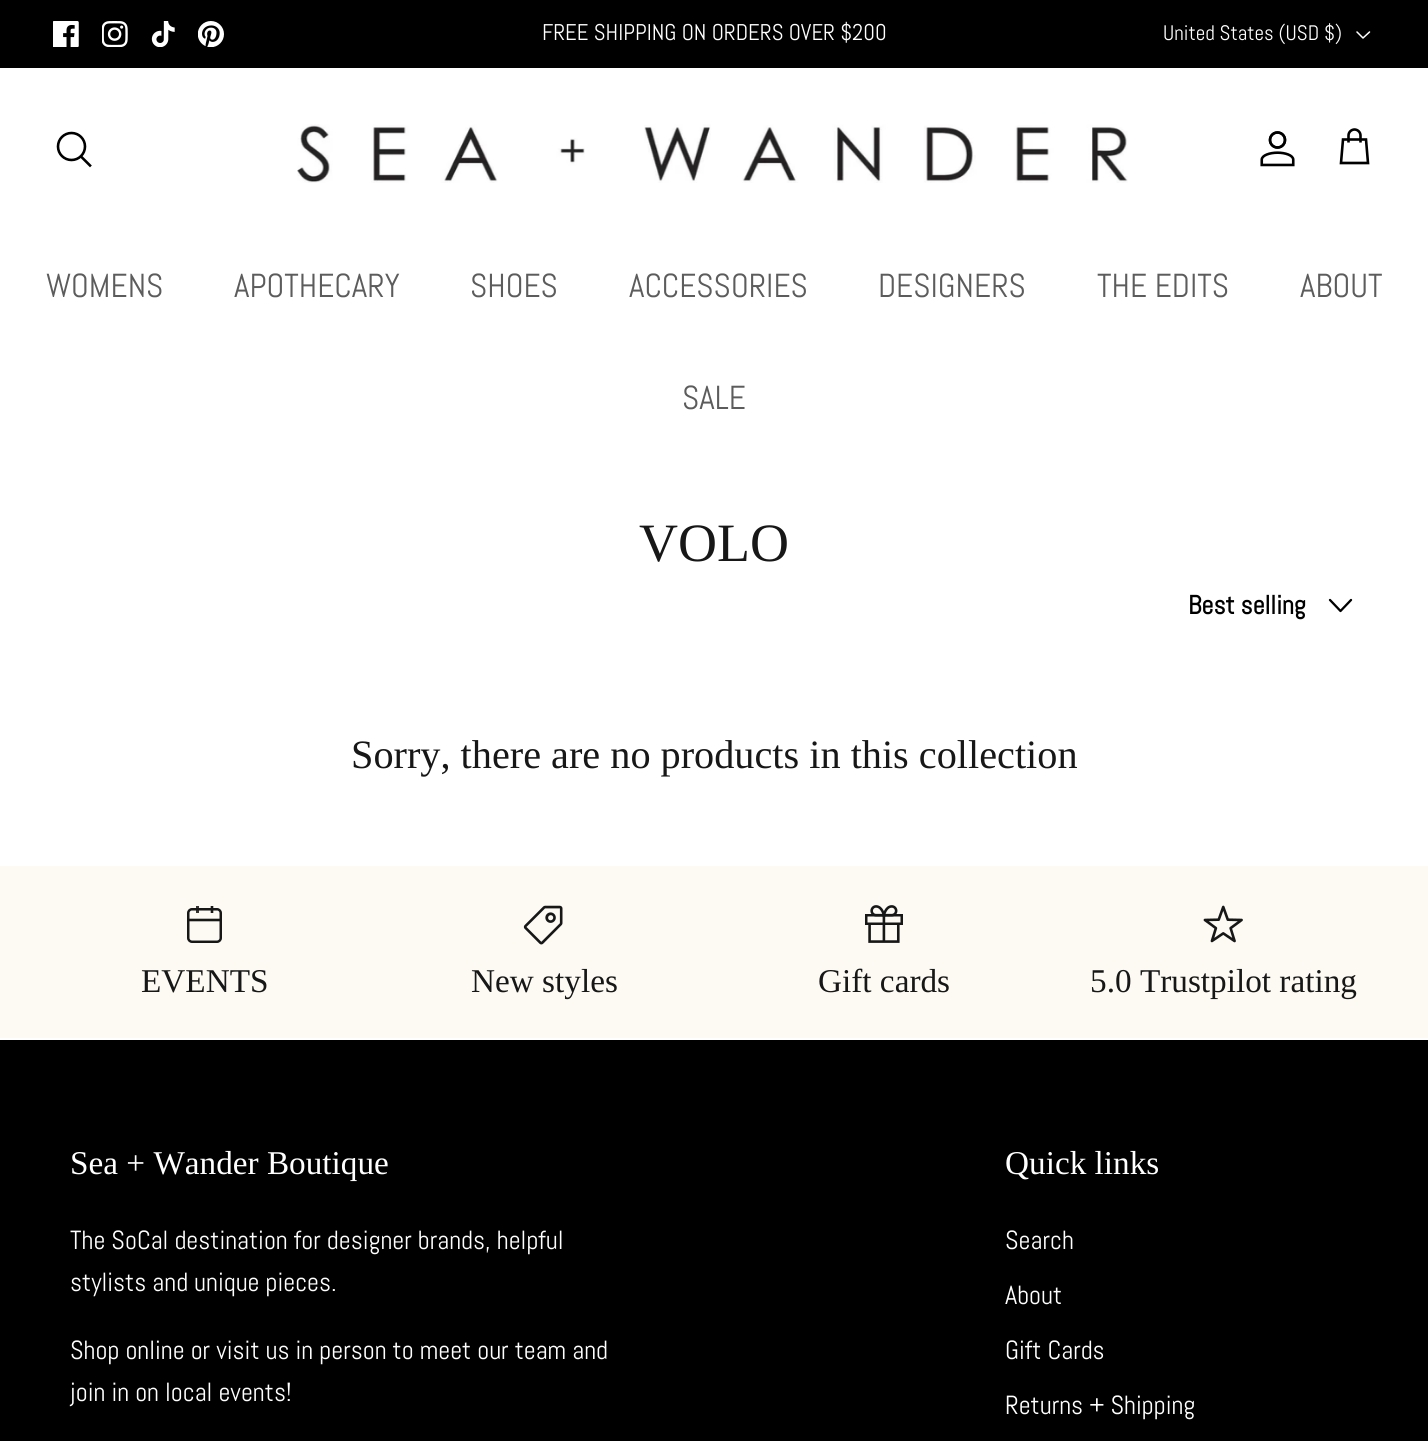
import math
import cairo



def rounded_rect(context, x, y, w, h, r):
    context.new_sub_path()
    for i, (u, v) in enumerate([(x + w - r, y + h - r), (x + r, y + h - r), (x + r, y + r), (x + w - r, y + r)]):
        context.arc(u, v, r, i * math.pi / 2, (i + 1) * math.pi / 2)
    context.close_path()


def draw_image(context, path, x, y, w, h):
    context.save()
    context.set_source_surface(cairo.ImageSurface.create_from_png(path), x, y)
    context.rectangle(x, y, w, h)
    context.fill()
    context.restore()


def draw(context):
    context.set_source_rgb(1, 1, 1)
    context.paint()
    context.set_source_rgb(0, 0, 0)
    context.rectangle(0, 0, 1428, 68)
    context.fill()
    draw_image(context, "images/1.png", 53, 21, 26, 26)
    draw_image(context, "images/2.png", 102, 21, 26, 26)
    draw_image(context, "images/3.png", 151, 21, 24, 26)
    draw_image(context, "images/4.png", 198, 21, 26, 26)
    context.new_path()
    context.move_to(1357, 32)
    context.line_to(1363, 38)
    context.line_to(1369.5, 32)
    context.set_source_rgb(1, 1, 1)
    context.set_line_width(1.5)
    context.set_line_cap(cairo.LineCap.ROUND)
    context.set_line_join(cairo.LineJoin.ROUND)
    context.stroke()
    context.arc(71.5, 146.5, 13.5, 0, 2 * math.pi)
    context.set_source_rgb(0, 0, 0)
    context.set_line_width(2.6)
    context.set_line_cap(cairo.LineCap.BUTT)
    context.set_line_join(cairo.LineJoin.MITER)
    context.stroke()
    context.new_path()
    context.move_to(82, 157.5)
    context.line_to(90, 165.5)
    context.set_line_cap(cairo.LineCap.SQUARE)
    context.stroke()
    draw_image(context, "images/5.png", 297, 124, 831, 59)
    draw_image(context, "images/6.png", 1260, 131, 35, 36)
    context.new_path()
    context.move_to(1360.5, 142.5)
    context.line_to(1360.5, 135.5)
    context.curve_to(1360.5, 132, 1357.5, 129.5, 1354.5, 129.5)
    context.curve_to(1351.5, 129.5, 1348.5, 132, 1348.5, 135.5)
    context.line_to(1348.5, 142.5)
    context.move_to(1343, 139.5)
    context.line_to(1366, 139.5)
    context.line_to(1368, 163)
    context.line_to(1341, 163)
    context.close_path()
    context.set_line_cap(cairo.LineCap.BUTT)
    context.stroke()
    context.new_path()
    context.move_to(1330, 600)
    context.line_to(1340.5, 611)
    context.line_to(1351, 600)
    context.set_line_width(2.3)
    context.set_line_cap(cairo.LineCap.ROUND)
    context.set_line_join(cairo.LineJoin.ROUND)
    context.stroke()
    context.rectangle(0, 1040, 1428, 401)
    context.fill()
    context.set_source_rgb(252 / 255, 250 / 255, 243 / 255)
    context.rectangle(0, 866, 1428, 172)
    context.fill()
    rounded_rect(context, 188.25, 909.25, 32.5, 32.5, 3.75)
    context.set_source_rgb(23 / 255, 23 / 255, 23 / 255)
    context.set_line_width(2.5)
    context.set_line_cap(cairo.LineCap.BUTT)
    context.set_line_join(cairo.LineJoin.MITER)
    context.stroke()
    context.set_source_rgba(23 / 255, 23 / 255, 23 / 255, 0.87)
    context.rectangle(196, 906, 3, 7)
    context.fill()
    context.new_path()
    context.move_to(212, 906)
    context.line_to(212, 913)
    context.set_source_rgb(23 / 255, 23 / 255, 23 / 255)
    context.set_line_width(2.6)
    context.stroke()
    context.new_path()
    context.move_to(188.5, 920)
    context.line_to(220.5, 920)
    context.stroke()
    draw_image(context, "images/7.png", 523, 905, 40, 40)
    draw_image(context, "images/8.png", 865, 905, 38, 38)
    draw_image(context, "images/9.png", 1203, 905, 40, 38)
    context.select_font_face("Abel")
    context.set_font_size(22.75)
    context.set_source_rgb(1, 1, 1)
    context.move_to(542, 40)
    context.show_text("FREE SHIPPING ON ORDERS OVER $200")
    context.set_font_size(21)
    context.move_to(1163, 40)
    context.show_text("United States (USD $)")
    context.set_font_size(33.25)
    context.set_source_rgb(92 / 255, 92 / 255, 92 / 255)
    context.move_to(46, 297)
    context.show_text("WOMENS")
    context.move_to(234, 297)
    context.show_text("APOTHECARY")
    context.move_to(470, 297)
    context.show_text("SHOES")
    context.move_to(629, 297)
    context.show_text("ACCESSORIES")
    context.move_to(878, 297)
    context.show_text("DESIGNERS")
    context.move_to(1097, 297)
    context.show_text("THE EDITS")
    context.move_to(1300, 297)
    context.show_text("ABOUT")
    context.move_to(682, 409)
    context.show_text("SALE")
    context.select_font_face("Liberation Serif")
    context.set_font_size(54)
    context.set_source_rgb(23 / 255, 23 / 255, 23 / 255)
    context.move_to(639, 561)
    context.show_text("VOLO")
    context.select_font_face("Abel", cairo.FontSlant.NORMAL, cairo.FontWeight.BOLD)
    context.set_font_size(26.25)
    context.set_source_rgb(0, 0, 0)
    context.move_to(1188, 614)
    context.show_text("Best selling")
    context.select_font_face("Liberation Serif")
    context.set_font_size(40.25)
    context.set_source_rgb(23 / 255, 23 / 255, 23 / 255)
    context.move_to(351, 768)
    context.show_text("Sorry, there are no products in this collection")
    context.set_font_size(33.25)
    context.move_to(141, 992)
    context.show_text("EVENTS")
    context.move_to(471, 992)
    context.show_text("New styles")
    context.move_to(818, 992)
    context.show_text("Gift cards")
    context.move_to(1090, 992)
    context.show_text("5.0 Trustpilot rating")
    context.set_source_rgb(1, 1, 1)
    context.move_to(70, 1174)
    context.show_text("Sea + Wander Boutique")
    context.select_font_face("Abel")
    context.set_font_size(26.25)
    context.move_to(70, 1249)
    context.show_text("The SoCal destination for designer brands, helpful")
    context.move_to(70, 1291)
    context.show_text("stylists and unique pieces.")
    context.move_to(70, 1359)
    context.show_text("Shop online or visit us in person to meet our team and")
    context.move_to(70, 1401)
    context.show_text("join in on local events!")
    context.select_font_face("Liberation Serif")
    context.set_font_size(33.25)
    context.move_to(1005, 1174)
    context.show_text("Quick links")
    context.select_font_face("Abel")
    context.set_font_size(26.25)
    context.move_to(1005, 1249)
    context.show_text("Search")
    context.move_to(1005, 1304)
    context.show_text("About")
    context.move_to(1005, 1359)
    context.show_text("Gift Cards")
    context.move_to(1005, 1414)
    context.show_text("Returns + Shipping")


surface = cairo.ImageSurface(cairo.Format.RGB24, 1428, 1441)
context = cairo.Context(surface)
options = cairo.FontOptions()
options.set_hint_metrics(cairo.HintMetrics.OFF)
options.set_hint_style(cairo.HintStyle.NONE)
context.set_font_options(options)
context.set_miter_limit(4)
draw(context)
surface.write_to_png("out.png")
